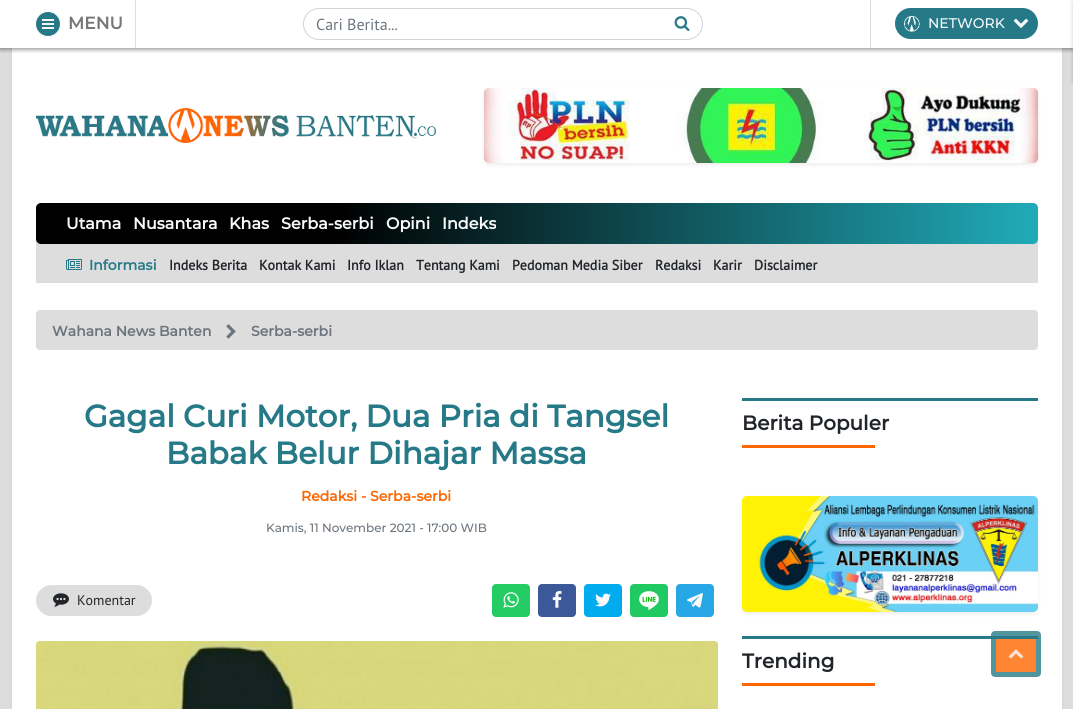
import math
import cairo



def rounded_rect(context, x, y, w, h, r):
    context.new_sub_path()
    for i, (u, v) in enumerate([(x + w - r, y + h - r), (x + r, y + h - r), (x + r, y + r), (x + w - r, y + r)]):
        context.arc(u, v, r, i * math.pi / 2, (i + 1) * math.pi / 2)
    context.close_path()


def draw_shadow(context, x, y, w, h, r, blur, alpha):
    context.push_group_with_content(cairo.Content.ALPHA)
    context.set_operator(cairo.Operator.SOURCE)
    for i in range(15, -16, -2):
        e = blur * i / 6
        if min(w, h) + 2 * e > 0:
            context.set_source_rgba(0, 0, 0, alpha * math.erfc((i - 1) / 8.5) / 2)
            rounded_rect(context, x - e, y - e, w + 2 * e, h + 2 * e, max(0, min(r + e + blur * .6, min(w, h) / 2 + e)))
            context.fill()
    context.mask(context.pop_group())


def draw_image(context, path, x, y, w, h):
    context.save()
    context.set_source_surface(cairo.ImageSurface.create_from_png(path), x, y)
    context.rectangle(x, y, w, h)
    context.fill()
    context.restore()


def draw(context):
    context.set_source_rgb(221 / 255, 221 / 255, 221 / 255)
    context.paint()
    context.set_source_rgb(0, 0, 0)
    draw_shadow(context, 12, 50, 1050, 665, 0, 2, 0.07)
    context.set_source_rgb(1, 1, 1)
    context.rectangle(12, 48, 1050, 661)
    context.fill()
    context.set_source_rgb(0, 0, 0)
    draw_shadow(context, 0, -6, 1073, 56, 0, 2, 0.2)
    draw_shadow(context, 0, 2, 1073, 48, 0, 2, 0.2)
    context.set_source_rgb(1, 1, 1)
    context.rectangle(0, 0, 1073, 48)
    context.fill()
    context.set_source_rgb(38 / 255, 122 / 255, 135 / 255)
    context.arc(48, 24, 12, 0, 2 * math.pi)
    context.fill()
    context.set_source_rgb(248 / 255, 249 / 255, 250 / 255)
    context.rectangle(42, 19, 12, 2)
    context.fill()
    context.rectangle(42, 23, 12, 2)
    context.fill()
    context.rectangle(42, 27, 12, 2)
    context.fill()
    context.set_source_rgb(221 / 255, 221 / 255, 221 / 255)
    context.rectangle(870, 0, 1, 48)
    context.fill()
    context.rectangle(135, 0, 1, 48)
    context.fill()
    rounded_rect(context, 303.5, 8.5, 399, 31, 15.5)
    context.set_source_rgb(206 / 255, 212 / 255, 218 / 255)
    context.set_line_width(1)
    context.stroke()
    draw_image(context, "images/1.png", 674, 16, 16, 15)
    context.set_source_rgb(38 / 255, 122 / 255, 135 / 255)
    rounded_rect(context, 895, 8, 143, 31, 15.5)
    context.fill()
    draw_image(context, "images/2.png", 904, 16, 16, 16)
    draw_image(context, "images/3.png", 1013, 18, 16, 10)
    context.set_source_rgb(0, 0, 0)
    draw_shadow(context, 1073, 2, 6, 81, 0, 2, 0.2)
    draw_image(context, "images/4.png", 36, 108, 400, 35)
    draw_shadow(context, 484, 90, 554, 75, 5, 2, 0.07)
    draw_image(context, "images/5.png", 484, 88, 554, 75)
    context.set_source_rgb(221 / 255, 221 / 255, 221 / 255)
    context.rectangle(36, 241, 1002, 42)
    context.fill()
    gradient = cairo.LinearGradient(36, 224, 1038, 223)
    gradient.add_color_stop_rgba(0.3, 0, 0, 0, 1)
    gradient.add_color_stop_rgba(1, 32 / 255, 171 / 255, 185 / 255, 1)
    context.set_source(gradient)
    rounded_rect(context, 36, 203, 1002, 41, 5)
    context.fill()
    draw_image(context, "images/6.png", 66, 259, 16, 11)
    context.set_source_rgb(221 / 255, 221 / 255, 221 / 255)
    rounded_rect(context, 36, 310, 1002, 40, 4)
    context.fill()
    draw_image(context, "images/7.png", 226, 324, 10, 15)
    rounded_rect(context, 36, 585, 116, 31, 15.5)
    context.fill()
    draw_image(context, "images/8.png", 53, 593, 16, 14)
    context.set_source_rgb(36 / 255, 204 / 255, 99 / 255)
    rounded_rect(context, 492, 584, 38, 33, 4)
    context.fill()
    draw_image(context, "images/9.png", 503, 592, 16, 16)
    context.set_source_rgb(59 / 255, 89 / 255, 152 / 255)
    rounded_rect(context, 538, 584, 38, 33, 4)
    context.fill()
    draw_image(context, "images/10.png", 552, 591, 10, 17)
    context.set_source_rgb(0, 172 / 255, 238 / 255)
    rounded_rect(context, 584, 584, 38, 33, 4)
    context.fill()
    draw_image(context, "images/11.png", 595, 593, 16, 14)
    context.set_source_rgb(32 / 255, 201 / 255, 98 / 255)
    rounded_rect(context, 630, 584, 38, 33, 4)
    context.fill()
    draw_image(context, "images/12.png", 639, 591, 20, 19)
    context.set_source_rgb(39 / 255, 167 / 255, 229 / 255)
    rounded_rect(context, 676, 584, 38, 33, 4)
    context.fill()
    draw_image(context, "images/13.png", 687, 593, 16, 15)
    draw_image(context, "images/14.png", 36, 641, 682, 68)
    context.set_source_rgb(38 / 255, 122 / 255, 135 / 255)
    context.rectangle(742, 398, 296, 3)
    context.fill()
    context.set_source_rgb(1, 102 / 255, 0)
    context.rectangle(742, 445, 133, 3)
    context.fill()
    context.set_source_rgb(0, 0, 0)
    draw_shadow(context, 742, 498, 296, 116, 5, 2, 0.07)
    draw_image(context, "images/15.png", 742, 496, 296, 116)
    context.set_source_rgb(1, 133 / 255, 51 / 255)
    rounded_rect(context, 993.5, 633.5, 45, 41, 1.5)
    context.fill_preserve()
    context.set_source_rgb(81 / 255, 149 / 255, 159 / 255)
    context.set_line_width(5)
    context.stroke()
    context.set_source_rgb(38 / 255, 122 / 255, 135 / 255)
    context.rectangle(742, 636, 296, 3)
    context.fill()
    context.set_source_rgb(1, 102 / 255, 0)
    context.rectangle(742, 683, 133, 3)
    context.fill()
    draw_image(context, "images/16.png", 1008, 649, 16, 10)
    context.select_font_face("Montserrat", cairo.FontSlant.NORMAL, cairo.FontWeight.BOLD)
    context.set_font_size(17)
    context.set_source_rgb(119 / 255, 119 / 255, 119 / 255)
    context.move_to(68, 29)
    context.show_text("MENU")
    context.select_font_face("PT Sans")
    context.set_font_size(16)
    context.set_source_rgb(108 / 255, 117 / 255, 125 / 255)
    context.move_to(316, 30)
    context.show_text("Cari Berita...")
    context.select_font_face("Montserrat Medium")
    context.set_font_size(14)
    context.set_source_rgb(248 / 255, 249 / 255, 250 / 255)
    context.move_to(928, 28)
    context.show_text("NETWORK")
    context.select_font_face("Montserrat", cairo.FontSlant.NORMAL, cairo.FontWeight.BOLD)
    context.set_font_size(16)
    context.move_to(66, 229)
    context.show_text("Utama")
    context.move_to(133, 229)
    context.show_text("Nusantara")
    context.move_to(229, 229)
    context.show_text("Khas")
    context.move_to(281, 229)
    context.show_text("Serba-serbi")
    context.move_to(386, 229)
    context.show_text("Opini")
    context.move_to(442, 229)
    context.show_text("Indeks")
    context.set_font_size(14)
    context.set_source_rgb(38 / 255, 122 / 255, 135 / 255)
    context.move_to(89, 270)
    context.show_text("Informasi")
    context.select_font_face("PT Sans", cairo.FontSlant.NORMAL, cairo.FontWeight.BOLD)
    context.set_source_rgb(33 / 255, 37 / 255, 41 / 255)
    context.move_to(169, 270)
    context.show_text("Indeks Berita")
    context.move_to(259, 270)
    context.show_text("Kontak Kami")
    context.move_to(347, 270)
    context.show_text("Info Iklan")
    context.move_to(416, 270)
    context.show_text("Tentang Kami")
    context.move_to(512, 270)
    context.show_text("Pedoman Media Siber")
    context.move_to(655, 270)
    context.show_text("Redaksi")
    context.move_to(713, 270)
    context.show_text("Karir")
    context.move_to(754, 270)
    context.show_text("Disclaimer")
    context.select_font_face("Montserrat", cairo.FontSlant.NORMAL, cairo.FontWeight.BOLD)
    context.set_source_rgb(108 / 255, 117 / 255, 125 / 255)
    context.move_to(52, 336)
    context.show_text("Wahana News Banten")
    context.move_to(251, 336)
    context.show_text("Serba-serbi")
    context.set_font_size(30.9)
    context.set_source_rgb(38 / 255, 122 / 255, 135 / 255)
    context.move_to(84, 427)
    context.show_text("Gagal Curi Motor, Dua Pria di Tangsel")
    context.move_to(166, 464)
    context.show_text("Babak Belur Dihajar Massa")
    context.set_font_size(14)
    context.set_source_rgb(1, 102 / 255, 0)
    context.move_to(301, 501)
    context.show_text("Redaksi - Serba-serbi")
    context.select_font_face("Montserrat Medium")
    context.set_font_size(12)
    context.set_source_rgb(108 / 255, 117 / 255, 125 / 255)
    context.move_to(266, 532)
    context.show_text("Kamis, 11 November 2021 - 17:00 WIB")
    context.select_font_face("PT Sans")
    context.set_font_size(14)
    context.set_source_rgb(33 / 255, 37 / 255, 41 / 255)
    context.move_to(77, 605)
    context.show_text("Komentar")
    context.select_font_face("Montserrat", cairo.FontSlant.NORMAL, cairo.FontWeight.BOLD)
    context.set_font_size(20)
    context.move_to(742, 430)
    context.show_text("Berita Populer")
    context.move_to(742, 668)
    context.show_text("Trending")


surface = cairo.ImageSurface(cairo.Format.RGB24, 1073, 709)
context = cairo.Context(surface)
options = cairo.FontOptions()
options.set_hint_metrics(cairo.HintMetrics.OFF)
options.set_hint_style(cairo.HintStyle.NONE)
context.set_font_options(options)
context.set_miter_limit(4)
draw(context)
surface.write_to_png("out.png")
